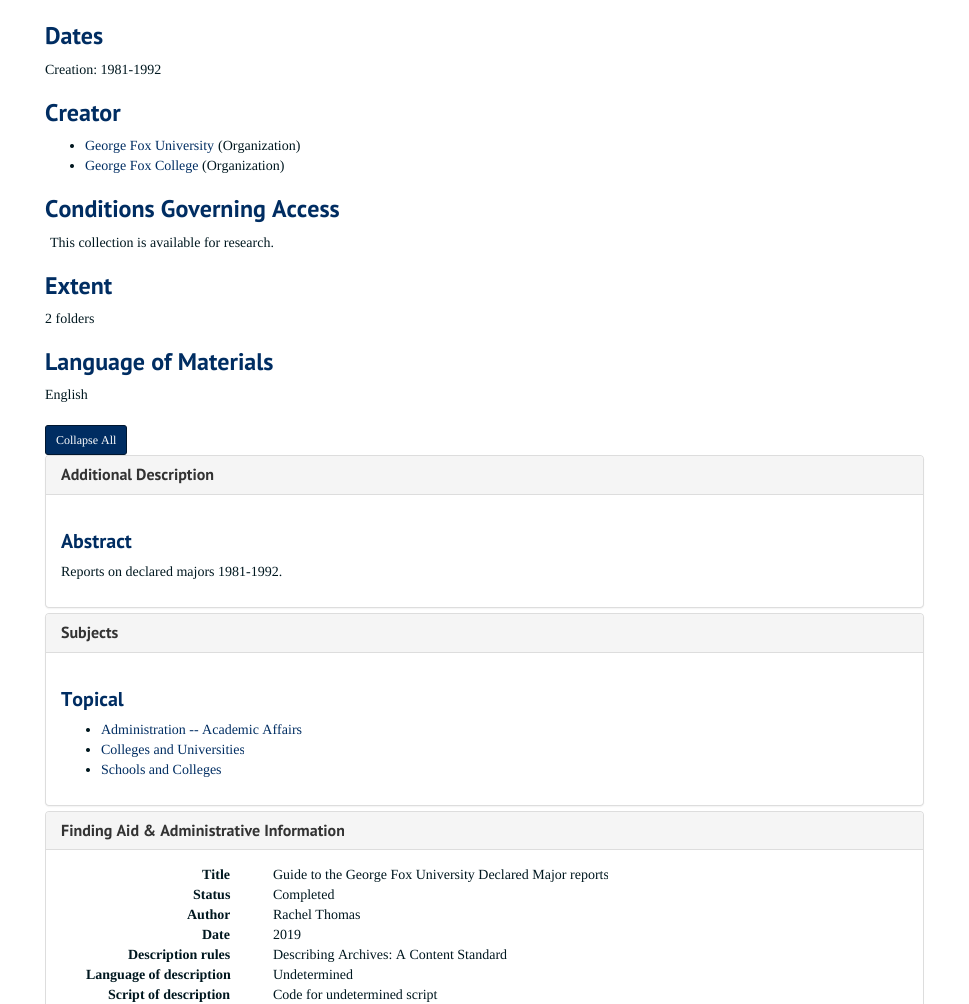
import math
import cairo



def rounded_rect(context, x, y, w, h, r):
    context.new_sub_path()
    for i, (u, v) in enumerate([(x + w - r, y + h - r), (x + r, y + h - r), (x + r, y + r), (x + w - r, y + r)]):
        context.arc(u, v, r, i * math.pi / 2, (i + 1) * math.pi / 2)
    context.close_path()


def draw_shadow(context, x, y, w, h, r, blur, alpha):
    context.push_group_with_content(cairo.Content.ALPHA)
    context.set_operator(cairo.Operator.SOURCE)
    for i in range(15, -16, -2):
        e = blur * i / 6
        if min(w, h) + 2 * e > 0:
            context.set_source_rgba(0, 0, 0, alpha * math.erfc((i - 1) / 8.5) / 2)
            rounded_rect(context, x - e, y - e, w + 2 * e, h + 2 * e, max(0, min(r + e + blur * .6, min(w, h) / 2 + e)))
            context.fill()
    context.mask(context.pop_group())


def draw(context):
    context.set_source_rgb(1, 1, 1)
    context.paint()
    context.set_source_rgb(0, 23 / 255, 31 / 255)
    context.arc(72, 146, 2, 0, 2 * math.pi)
    context.fill()
    context.arc(72, 166, 2, 0, 2 * math.pi)
    context.fill()
    context.set_source_rgb(0, 0, 0)
    draw_shadow(context, 45, 456, 879, 153, 4, 0.5, 0.05)
    context.set_source_rgb(0, 45 / 255, 98 / 255)
    rounded_rect(context, 45.5, 425.5, 81, 29, 2.5)
    context.fill_preserve()
    context.set_source_rgb(0, 22 / 255, 47 / 255)
    context.set_line_width(1)
    context.stroke()
    context.set_source_rgb(1, 1, 1)
    rounded_rect(context, 45.5, 455.5, 878, 152, 3.5)
    context.fill_preserve()
    context.set_source_rgb(221 / 255, 221 / 255, 221 / 255)
    context.stroke()
    context.set_source_rgb(245 / 255, 245 / 255, 245 / 255)
    context.new_path()
    context.move_to(49, 456)
    context.line_to(920, 456)
    context.curve_to(921.5, 456, 923, 457.5, 923, 459)
    context.line_to(923, 494)
    context.line_to(46, 494)
    context.line_to(46, 459)
    context.curve_to(46, 457.5, 47.5, 456, 49, 456)
    context.close_path()
    context.fill()
    context.set_source_rgb(221 / 255, 221 / 255, 221 / 255)
    context.rectangle(46, 494, 877, 1)
    context.fill()
    context.set_source_rgb(0, 0, 0)
    draw_shadow(context, 45, 614, 879, 193, 4, 0.5, 0.05)
    context.set_source_rgb(1, 1, 1)
    rounded_rect(context, 45.5, 613.5, 878, 192, 3.5)
    context.fill_preserve()
    context.set_source_rgb(221 / 255, 221 / 255, 221 / 255)
    context.stroke()
    context.set_source_rgb(245 / 255, 245 / 255, 245 / 255)
    context.new_path()
    context.move_to(49, 614)
    context.line_to(920, 614)
    context.curve_to(921.5, 614, 923, 615.5, 923, 617)
    context.line_to(923, 652)
    context.line_to(46, 652)
    context.line_to(46, 617)
    context.curve_to(46, 615.5, 47.5, 614, 49, 614)
    context.close_path()
    context.fill()
    context.set_source_rgb(221 / 255, 221 / 255, 221 / 255)
    context.rectangle(46, 652, 877, 1)
    context.fill()
    context.set_source_rgb(0, 23 / 255, 31 / 255)
    context.arc(88, 730, 2, 0, 2 * math.pi)
    context.fill()
    context.arc(88, 750, 2, 0, 2 * math.pi)
    context.fill()
    context.arc(88, 770, 2, 0, 2 * math.pi)
    context.fill()
    rounded_rect(context, 45.5, 811.5, 878, 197, 3.5)
    context.set_source_rgb(221 / 255, 221 / 255, 221 / 255)
    context.stroke()
    context.set_source_rgb(245 / 255, 245 / 255, 245 / 255)
    context.new_path()
    context.move_to(49, 812)
    context.line_to(920, 812)
    context.curve_to(921.5, 812, 923, 813.5, 923, 815)
    context.line_to(923, 849)
    context.line_to(46, 849)
    context.line_to(46, 815)
    context.curve_to(46, 813.5, 47.5, 812, 49, 812)
    context.close_path()
    context.fill()
    context.set_source_rgb(221 / 255, 221 / 255, 221 / 255)
    context.rectangle(46, 849, 877, 1)
    context.fill()
    context.select_font_face("PT Sans", cairo.FontSlant.NORMAL, cairo.FontWeight.BOLD)
    context.set_font_size(24)
    context.set_source_rgb(0, 45 / 255, 98 / 255)
    context.move_to(45, 44)
    context.show_text("Dates")
    context.select_font_face("Liberation Serif")
    context.set_font_size(14)
    context.set_source_rgb(0, 23 / 255, 31 / 255)
    context.move_to(45, 74)
    context.show_text("Creation: 1981-1992")
    context.select_font_face("PT Sans", cairo.FontSlant.NORMAL, cairo.FontWeight.BOLD)
    context.set_font_size(24)
    context.set_source_rgb(0, 45 / 255, 98 / 255)
    context.move_to(45, 121)
    context.show_text("Creator")
    context.select_font_face("Liberation Serif")
    context.set_font_size(14)
    context.move_to(85, 150)
    context.show_text("George Fox University")
    context.set_source_rgb(0, 23 / 255, 31 / 255)
    context.move_to(218, 150)
    context.show_text("(Organization)")
    context.set_source_rgb(0, 45 / 255, 98 / 255)
    context.move_to(85, 170)
    context.show_text("George Fox College")
    context.set_source_rgb(0, 23 / 255, 31 / 255)
    context.move_to(202, 170)
    context.show_text("(Organization)")
    context.select_font_face("PT Sans", cairo.FontSlant.NORMAL, cairo.FontWeight.BOLD)
    context.set_font_size(24)
    context.set_source_rgb(0, 45 / 255, 98 / 255)
    context.move_to(45, 217)
    context.show_text("Conditions Governing Access")
    context.select_font_face("Liberation Serif")
    context.set_font_size(14)
    context.set_source_rgb(0, 23 / 255, 31 / 255)
    context.move_to(50, 247)
    context.show_text("This collection is available for research.")
    context.select_font_face("PT Sans", cairo.FontSlant.NORMAL, cairo.FontWeight.BOLD)
    context.set_font_size(24)
    context.set_source_rgb(0, 45 / 255, 98 / 255)
    context.move_to(45, 294)
    context.show_text("Extent")
    context.select_font_face("Liberation Serif")
    context.set_font_size(14)
    context.set_source_rgb(0, 23 / 255, 31 / 255)
    context.move_to(45, 323)
    context.show_text("2 folders")
    context.select_font_face("PT Sans", cairo.FontSlant.NORMAL, cairo.FontWeight.BOLD)
    context.set_font_size(24)
    context.set_source_rgb(0, 45 / 255, 98 / 255)
    context.move_to(45, 370)
    context.show_text("Language of Materials")
    context.select_font_face("Liberation Serif")
    context.set_font_size(14)
    context.set_source_rgb(0, 23 / 255, 31 / 255)
    context.move_to(45, 399)
    context.show_text("English")
    context.set_font_size(12)
    context.set_source_rgb(1, 1, 1)
    context.move_to(56, 444)
    context.show_text("Collapse All")
    context.select_font_face("PT Sans", cairo.FontSlant.NORMAL, cairo.FontWeight.BOLD)
    context.set_font_size(16)
    context.set_source_rgb(51 / 255, 51 / 255, 51 / 255)
    context.move_to(61, 480)
    context.show_text("Additional Description")
    context.set_font_size(20)
    context.set_source_rgb(0, 45 / 255, 98 / 255)
    context.move_to(61, 548)
    context.show_text("Abstract")
    context.select_font_face("Liberation Serif")
    context.set_font_size(14)
    context.set_source_rgb(0, 23 / 255, 31 / 255)
    context.move_to(61, 576)
    context.show_text("Reports on declared majors 1981-1992.")
    context.select_font_face("PT Sans", cairo.FontSlant.NORMAL, cairo.FontWeight.BOLD)
    context.set_font_size(16)
    context.set_source_rgb(51 / 255, 51 / 255, 51 / 255)
    context.move_to(61, 638)
    context.show_text("Subjects")
    context.set_font_size(20)
    context.set_source_rgb(0, 45 / 255, 98 / 255)
    context.move_to(61, 706)
    context.show_text("Topical")
    context.select_font_face("Liberation Serif")
    context.set_font_size(14)
    context.move_to(101, 734)
    context.show_text("Administration -- Academic Affairs")
    context.move_to(101, 754)
    context.show_text("Colleges and Universities")
    context.move_to(101, 774)
    context.show_text("Schools and Colleges")
    context.select_font_face("PT Sans", cairo.FontSlant.NORMAL, cairo.FontWeight.BOLD)
    context.set_font_size(16)
    context.set_source_rgb(51 / 255, 51 / 255, 51 / 255)
    context.move_to(61, 836)
    context.show_text("Finding Aid & Administrative Information")
    context.select_font_face("Liberation Serif", cairo.FontSlant.NORMAL, cairo.FontWeight.BOLD)
    context.set_font_size(14)
    context.set_source_rgb(0, 23 / 255, 31 / 255)
    context.move_to(202, 879)
    context.show_text("Title")
    context.select_font_face("Liberation Serif")
    context.move_to(273, 879)
    context.show_text("Guide to the George Fox University Declared Major reports")
    context.select_font_face("Liberation Serif", cairo.FontSlant.NORMAL, cairo.FontWeight.BOLD)
    context.move_to(193, 899)
    context.show_text("Status")
    context.select_font_face("Liberation Serif")
    context.move_to(273, 899)
    context.show_text("Completed")
    context.select_font_face("Liberation Serif", cairo.FontSlant.NORMAL, cairo.FontWeight.BOLD)
    context.move_to(187, 919)
    context.show_text("Author")
    context.select_font_face("Liberation Serif")
    context.move_to(273, 919)
    context.show_text("Rachel Thomas")
    context.select_font_face("Liberation Serif", cairo.FontSlant.NORMAL, cairo.FontWeight.BOLD)
    context.move_to(202, 939)
    context.show_text("Date")
    context.select_font_face("Liberation Serif")
    context.move_to(273, 939)
    context.show_text("2019")
    context.select_font_face("Liberation Serif", cairo.FontSlant.NORMAL, cairo.FontWeight.BOLD)
    context.move_to(128, 959)
    context.show_text("Description rules")
    context.select_font_face("Liberation Serif")
    context.move_to(273, 959)
    context.show_text("Describing Archives: A Content Standard")
    context.select_font_face("Liberation Serif", cairo.FontSlant.NORMAL, cairo.FontWeight.BOLD)
    context.move_to(86, 979)
    context.show_text("Language of description")
    context.select_font_face("Liberation Serif")
    context.move_to(273, 979)
    context.show_text("Undetermined")
    context.select_font_face("Liberation Serif", cairo.FontSlant.NORMAL, cairo.FontWeight.BOLD)
    context.move_to(108, 999)
    context.show_text("Script of description")
    context.select_font_face("Liberation Serif")
    context.move_to(273, 999)
    context.show_text("Code for undetermined script")


surface = cairo.ImageSurface(cairo.Format.RGB24, 969, 1004)
context = cairo.Context(surface)
options = cairo.FontOptions()
options.set_hint_metrics(cairo.HintMetrics.OFF)
options.set_hint_style(cairo.HintStyle.NONE)
context.set_font_options(options)
context.set_miter_limit(4)
draw(context)
surface.write_to_png("out.png")
